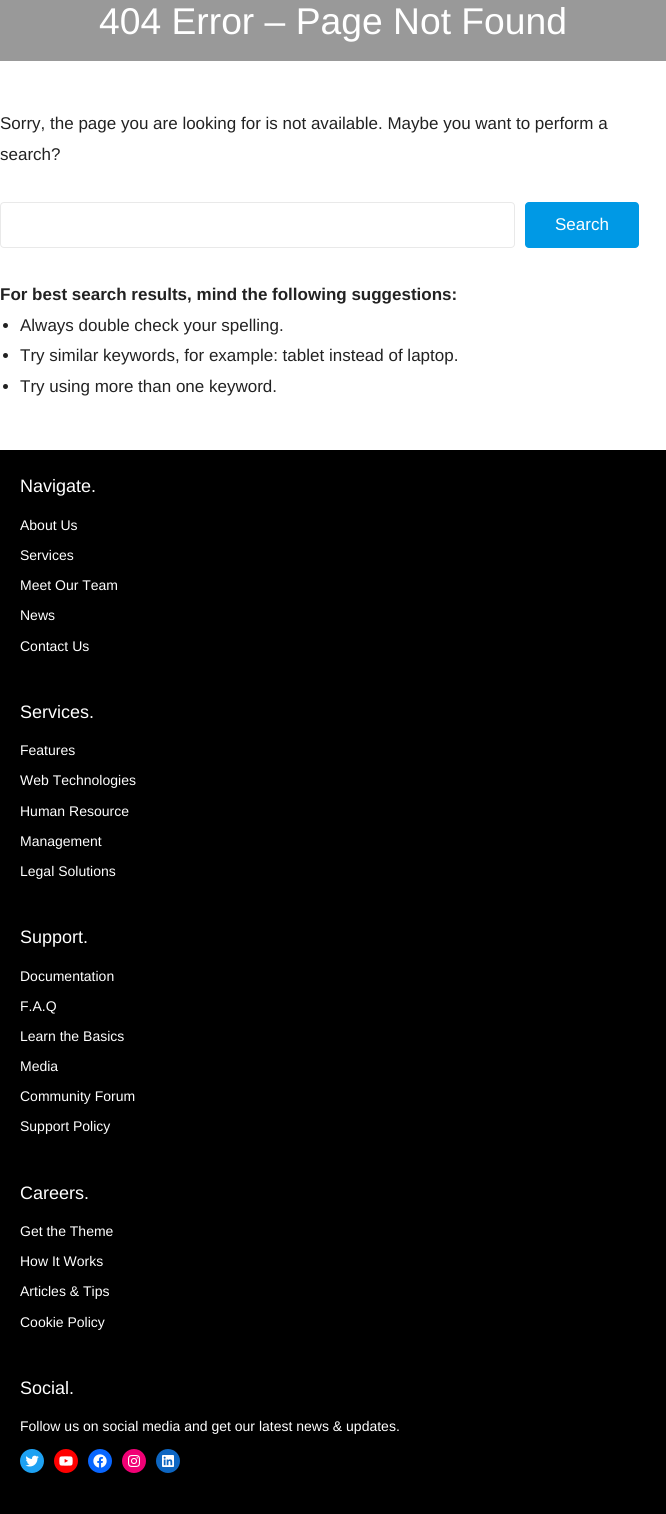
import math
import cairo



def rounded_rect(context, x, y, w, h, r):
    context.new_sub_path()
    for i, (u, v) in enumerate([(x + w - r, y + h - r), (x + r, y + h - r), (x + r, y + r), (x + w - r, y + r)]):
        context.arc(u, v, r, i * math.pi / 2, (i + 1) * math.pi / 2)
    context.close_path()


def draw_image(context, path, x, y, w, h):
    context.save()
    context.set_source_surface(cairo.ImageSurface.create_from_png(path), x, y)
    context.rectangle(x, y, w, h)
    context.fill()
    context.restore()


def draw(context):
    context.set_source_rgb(1, 1, 1)
    context.paint()
    context.set_source_rgb(153 / 255, 153 / 255, 153 / 255)
    context.rectangle(0, 0, 666, 61)
    context.fill()
    rounded_rect(context, 0.5, 202.5, 514, 45, 3.5)
    context.set_source_rgb(233 / 255, 233 / 255, 233 / 255)
    context.set_line_width(1)
    context.stroke()
    context.set_source_rgb(0, 153 / 255, 229 / 255)
    rounded_rect(context, 525, 202, 114, 46, 4)
    context.fill()
    context.set_source_rgb(34 / 255, 34 / 255, 34 / 255)
    context.arc(5.5, 325.5, 2.5, 0, 2 * math.pi)
    context.fill()
    context.arc(5.5, 355.5, 2.5, 0, 2 * math.pi)
    context.fill()
    context.arc(5.5, 386.5, 2.5, 0, 2 * math.pi)
    context.fill()
    context.set_source_rgb(0, 0, 0)
    context.rectangle(0, 450, 666, 1064)
    context.fill()
    context.set_source_rgb(29 / 255, 161 / 255, 242 / 255)
    context.arc(32, 1461, 12, 0, 2 * math.pi)
    context.fill()
    draw_image(context, "images/1.png", 25, 1455, 14, 12)
    context.set_source_rgb(1, 0, 0)
    context.arc(66, 1461, 12, 0, 2 * math.pi)
    context.fill()
    draw_image(context, "images/2.png", 59, 1456, 14, 10)
    context.set_source_rgb(8 / 255, 102 / 255, 1)
    context.arc(100, 1461, 12, 0, 2 * math.pi)
    context.fill()
    draw_image(context, "images/3.png", 93, 1454, 14, 14)
    context.set_source_rgb(240 / 255, 0, 117 / 255)
    context.arc(134, 1461, 12, 0, 2 * math.pi)
    context.fill()
    draw_image(context, "images/4.png", 128, 1455, 12, 12)
    context.set_source_rgb(13 / 255, 102 / 255, 194 / 255)
    context.arc(168, 1461, 12, 0, 2 * math.pi)
    context.fill()
    draw_image(context, "images/5.png", 162, 1455, 12, 12)
    context.select_font_face("Liberation Sans")
    context.set_font_size(37.25)
    context.set_source_rgb(1, 1, 1)
    context.move_to(99, 34)
    context.show_text("404 Error – Page Not Found")
    context.set_font_size(17)
    context.set_source_rgb(34 / 255, 34 / 255, 34 / 255)
    context.move_to(0, 129)
    context.show_text("Sorry, the page you are looking for is not available. Maybe you want to perform a")
    context.move_to(0, 160)
    context.show_text("search?")
    context.set_source_rgb(1, 1, 1)
    context.move_to(555, 230)
    context.show_text("Search")
    context.select_font_face("Liberation Sans", cairo.FontSlant.NORMAL, cairo.FontWeight.BOLD)
    context.set_source_rgb(34 / 255, 34 / 255, 34 / 255)
    context.move_to(0, 300)
    context.show_text("For best search results, mind the following suggestions:")
    context.select_font_face("Liberation Sans")
    context.move_to(20, 331)
    context.show_text("Always double check your spelling.")
    context.move_to(20, 361)
    context.show_text("Try similar keywords, for example: tablet instead of laptop.")
    context.move_to(20, 392)
    context.show_text("Try using more than one keyword.")
    context.set_font_size(18)
    context.set_source_rgb(1, 1, 1)
    context.move_to(20, 492)
    context.show_text("Navigate.")
    context.set_font_size(14)
    context.move_to(20, 530)
    context.show_text("About Us")
    context.move_to(20, 560)
    context.show_text("Services")
    context.move_to(20, 590)
    context.show_text("Meet Our Team")
    context.move_to(20, 620)
    context.show_text("News")
    context.move_to(20, 651)
    context.show_text("Contact Us")
    context.set_font_size(18)
    context.move_to(20, 718)
    context.show_text("Services.")
    context.set_font_size(14)
    context.move_to(20, 755)
    context.show_text("Features")
    context.move_to(20, 785)
    context.show_text("Web Technologies")
    context.move_to(20, 816)
    context.show_text("Human Resource")
    context.move_to(20, 846)
    context.show_text("Management")
    context.move_to(20, 876)
    context.show_text("Legal Solutions")
    context.set_font_size(18)
    context.move_to(20, 943)
    context.show_text("Support.")
    context.set_font_size(14)
    context.move_to(20, 981)
    context.show_text("Documentation")
    context.move_to(20, 1011)
    context.show_text("F.A.Q")
    context.move_to(20, 1041)
    context.show_text("Learn the Basics")
    context.move_to(20, 1071)
    context.show_text("Media")
    context.move_to(20, 1101)
    context.show_text("Community Forum")
    context.move_to(20, 1131)
    context.show_text("Support Policy")
    context.set_font_size(18)
    context.move_to(20, 1199)
    context.show_text("Careers.")
    context.set_font_size(14)
    context.move_to(20, 1236)
    context.show_text("Get the Theme")
    context.move_to(20, 1266)
    context.show_text("How It Works")
    context.move_to(20, 1296)
    context.show_text("Articles & Tips")
    context.move_to(20, 1327)
    context.show_text("Cookie Policy")
    context.set_font_size(18)
    context.move_to(20, 1394)
    context.show_text("Social.")
    context.set_font_size(14)
    context.move_to(20, 1431)
    context.show_text("Follow us on social media and get our latest news & updates.")


surface = cairo.ImageSurface(cairo.Format.RGB24, 666, 1514)
context = cairo.Context(surface)
options = cairo.FontOptions()
options.set_hint_metrics(cairo.HintMetrics.OFF)
options.set_hint_style(cairo.HintStyle.NONE)
context.set_font_options(options)
context.set_miter_limit(4)
draw(context)
surface.write_to_png("out.png")
